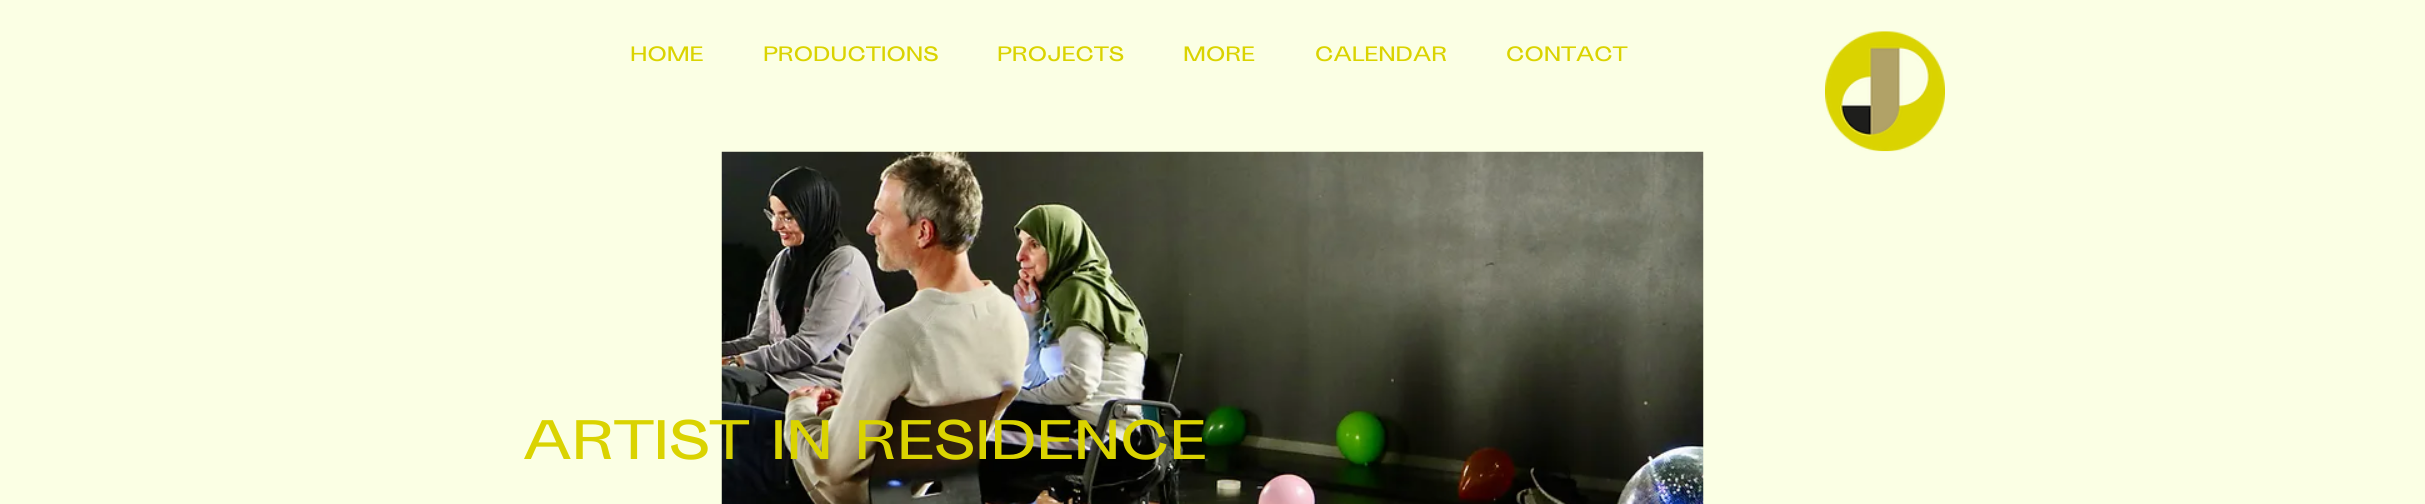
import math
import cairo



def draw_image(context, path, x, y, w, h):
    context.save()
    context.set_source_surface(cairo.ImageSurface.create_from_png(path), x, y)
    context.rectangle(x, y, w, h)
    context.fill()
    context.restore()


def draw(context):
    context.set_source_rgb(251 / 255, 1, 228 / 255)
    context.paint()
    draw_image(context, "images/1.png", 1825, 31, 120, 121)
    draw_image(context, "images/2.png", 721, 151, 983, 353)
    context.select_font_face("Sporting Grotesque")
    context.set_font_size(18.75)
    context.set_source_rgb(218 / 255, 211 / 255, 0)
    context.move_to(630, 61)
    context.show_text("HOME")
    context.move_to(763, 61)
    context.show_text("PRODUCTIONS")
    context.move_to(997, 61)
    context.show_text("PROJECTS")
    context.move_to(1183, 61)
    context.show_text("MORE")
    context.move_to(1315, 61)
    context.show_text("CALENDAR")
    context.move_to(1506, 61)
    context.show_text("CONTACT")
    context.set_font_size(50)
    context.move_to(523, 459)
    context.show_text("ARTIST IN RESIDENCE")


surface = cairo.ImageSurface(cairo.Format.RGB24, 2425, 504)
context = cairo.Context(surface)
options = cairo.FontOptions()
options.set_hint_metrics(cairo.HintMetrics.OFF)
options.set_hint_style(cairo.HintStyle.NONE)
context.set_font_options(options)
context.set_miter_limit(4)
draw(context)
surface.write_to_png("out.png")
